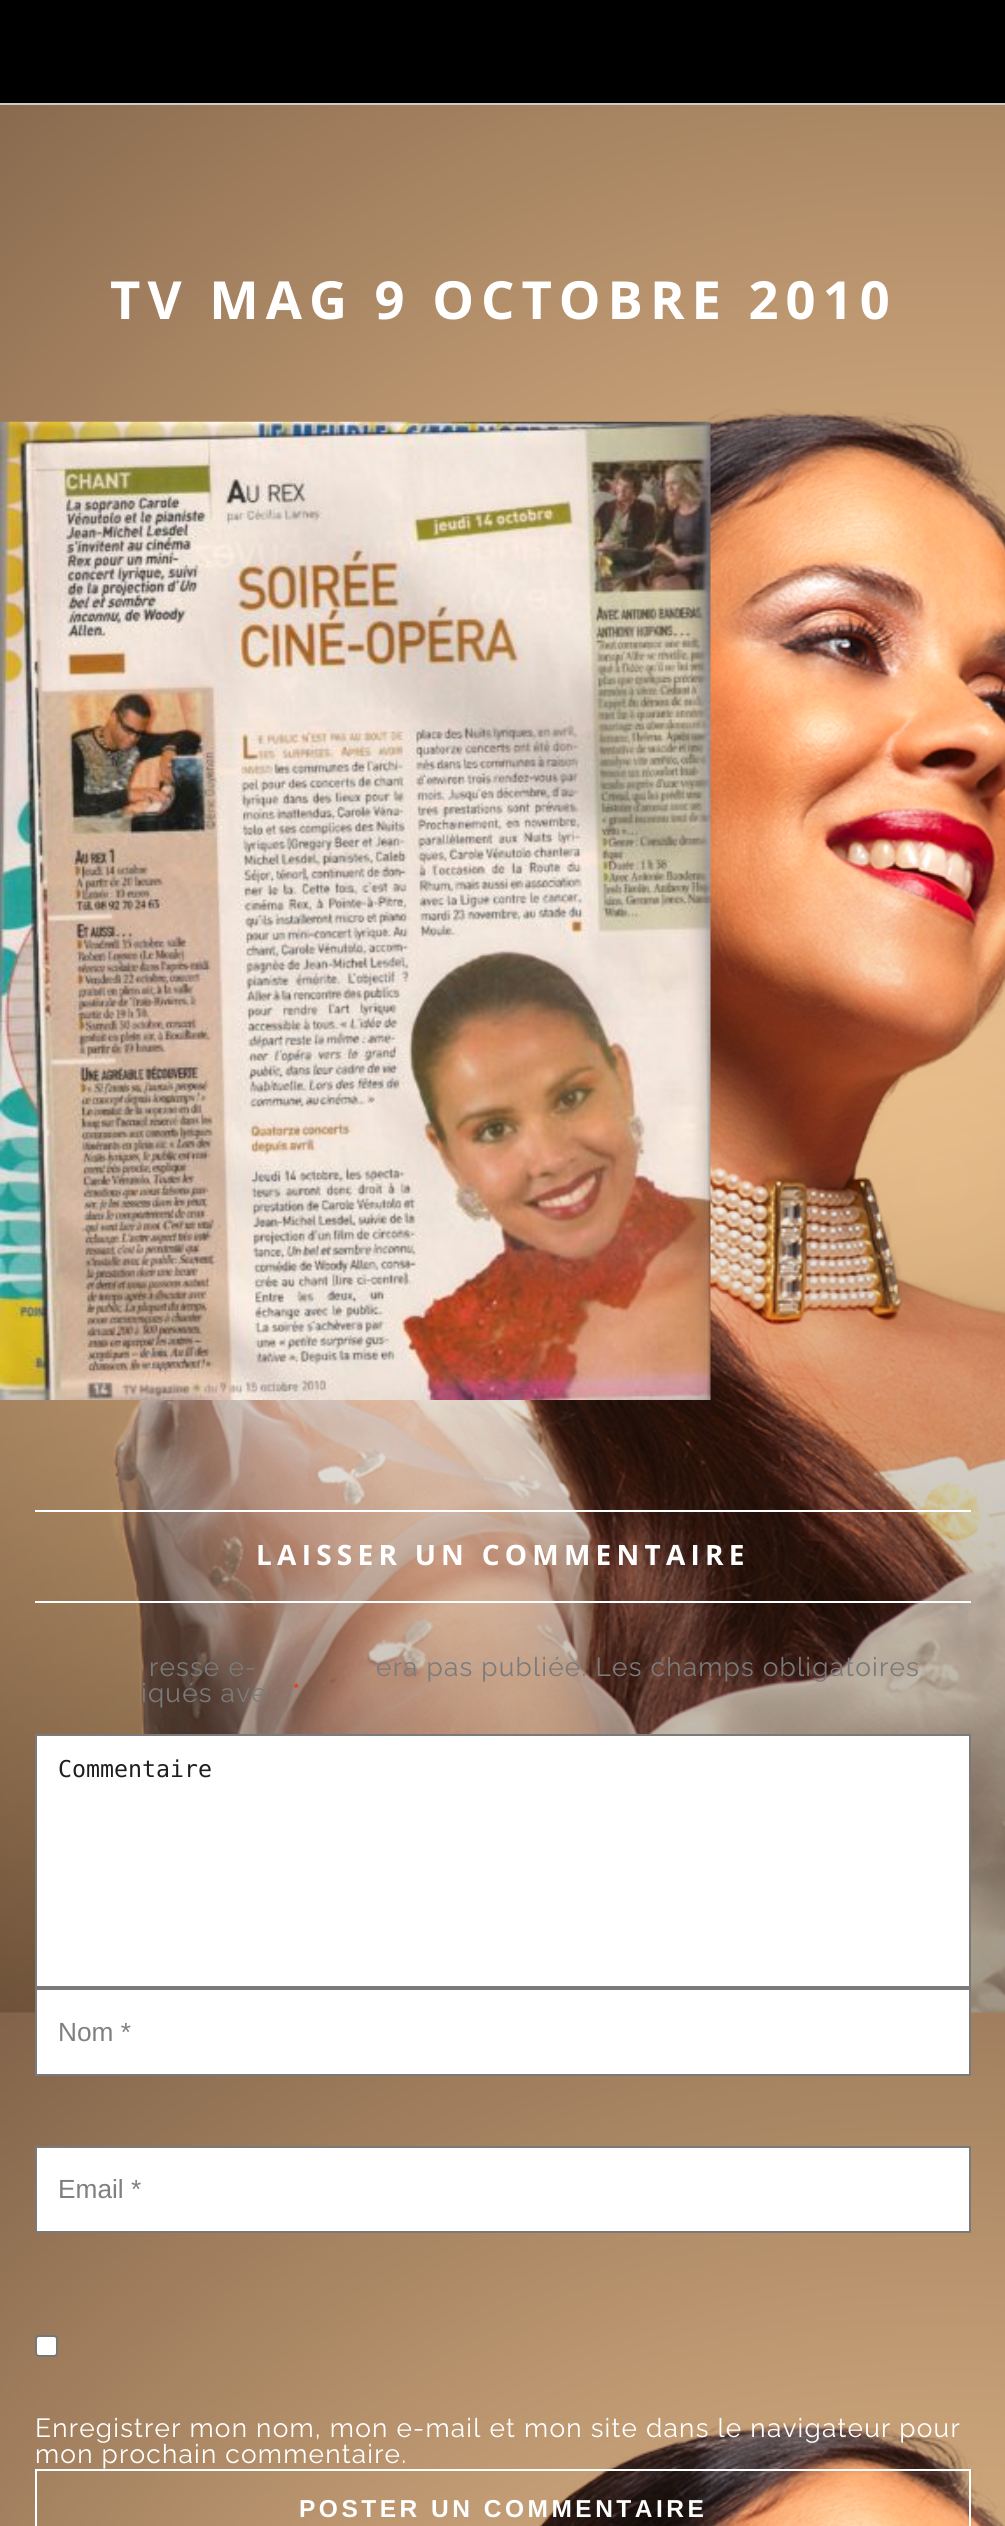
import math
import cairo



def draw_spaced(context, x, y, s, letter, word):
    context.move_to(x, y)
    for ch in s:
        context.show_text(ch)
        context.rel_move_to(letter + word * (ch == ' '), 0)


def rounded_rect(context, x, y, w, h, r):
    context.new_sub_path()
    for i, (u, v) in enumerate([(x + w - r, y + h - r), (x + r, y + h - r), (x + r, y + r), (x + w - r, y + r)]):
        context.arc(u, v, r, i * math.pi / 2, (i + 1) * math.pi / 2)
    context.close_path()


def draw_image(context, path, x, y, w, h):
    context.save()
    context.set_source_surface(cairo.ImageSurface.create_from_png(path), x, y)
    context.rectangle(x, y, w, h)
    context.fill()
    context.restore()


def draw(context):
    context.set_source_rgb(1, 1, 1)
    context.paint()
    draw_image(context, "images/1.png", 0, 105, 1005, 2421)
    context.set_source_rgb(0, 0, 0)
    context.rectangle(0, 0, 1005, 103)
    context.fill()
    context.set_source_rgb(204 / 255, 204 / 255, 204 / 255)
    context.rectangle(0, 103, 1005, 2)
    context.fill()
    draw_image(context, "images/2.png", 0, 421, 711, 979)
    context.set_source_rgb(1, 1, 1)
    context.rectangle(35, 1510, 936, 2)
    context.fill()
    context.rectangle(35, 1601, 936, 2)
    context.fill()
    context.rectangle(36, 1735, 934, 252)
    context.fill_preserve()
    context.set_source_rgb(122 / 255, 122 / 255, 122 / 255)
    context.stroke()
    context.set_source_rgb(1, 1, 1)
    context.rectangle(36, 1989, 934, 86)
    context.fill_preserve()
    context.set_source_rgb(122 / 255, 122 / 255, 122 / 255)
    context.stroke()
    context.set_source_rgb(1, 1, 1)
    context.rectangle(36, 2147, 934, 85)
    context.fill_preserve()
    context.set_source_rgb(122 / 255, 122 / 255, 122 / 255)
    context.stroke()
    context.set_source_rgb(1, 1, 1)
    rounded_rect(context, 36, 2336, 21, 20, 3)
    context.fill_preserve()
    context.set_source_rgb(118 / 255, 118 / 255, 118 / 255)
    context.stroke()
    context.rectangle(36, 2470, 934, 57)
    context.set_source_rgb(1, 1, 1)
    context.stroke()
    context.select_font_face("Open Sans", cairo.FontSlant.NORMAL, cairo.FontWeight.BOLD)
    context.set_font_size(52.5)
    draw_spaced(context, 110, 319, "TV MAG 9 OCTOBRE 2010", 7, 0)
    context.set_font_size(28)
    draw_spaced(context, 256, 1565, "LAISSER UN COMMENTAIRE", 5.25, 0)
    context.select_font_face("Raleway Thin")
    context.set_font_size(26.25)
    context.set_source_rgb(122 / 255, 122 / 255, 122 / 255)
    draw_spaced(context, 149, 1676, "resse e-", 1.22, 0)
    draw_spaced(context, 376, 1676, "era pas publiée. Les champs obligatoires", 1.22, 0)
    draw_spaced(context, 141, 1702, "iqués ave", 1.22, 0)
    context.set_source_rgb(237 / 255, 51 / 255, 28 / 255)
    draw_spaced(context, 292, 1702, "*", 1.22, 0)
    context.select_font_face("DejaVu Sans Mono")
    context.set_font_size(23.25)
    context.set_source_rgb(31 / 255, 31 / 255, 31 / 255)
    context.move_to(58, 1777)
    context.show_text("Commentaire")
    context.select_font_face("Liberation Sans")
    context.set_font_size(26.25)
    context.set_source_rgb(128 / 255, 128 / 255, 128 / 255)
    context.move_to(58, 2041)
    context.show_text("Nom *")
    context.move_to(58, 2198)
    context.show_text("Email *")
    context.select_font_face("Raleway Thin")
    context.set_source_rgb(1, 1, 1)
    draw_spaced(context, 35, 2437, "Enregistrer mon nom, mon e-mail et mon site dans le navigateur pour", 1.22, 0)
    draw_spaced(context, 35, 2463, "mon prochain commentaire.", 1.22, 0)
    context.select_font_face("Liberation Sans", cairo.FontSlant.NORMAL, cairo.FontWeight.BOLD)
    context.set_font_size(24.5)
    draw_spaced(context, 299, 2517, "POSTER UN COMMENTAIRE", 3.5, 0)


surface = cairo.ImageSurface(cairo.Format.RGB24, 1005, 2526)
context = cairo.Context(surface)
options = cairo.FontOptions()
options.set_hint_metrics(cairo.HintMetrics.OFF)
options.set_hint_style(cairo.HintStyle.NONE)
context.set_font_options(options)
context.set_miter_limit(4)
draw(context)
surface.write_to_png("out.png")
